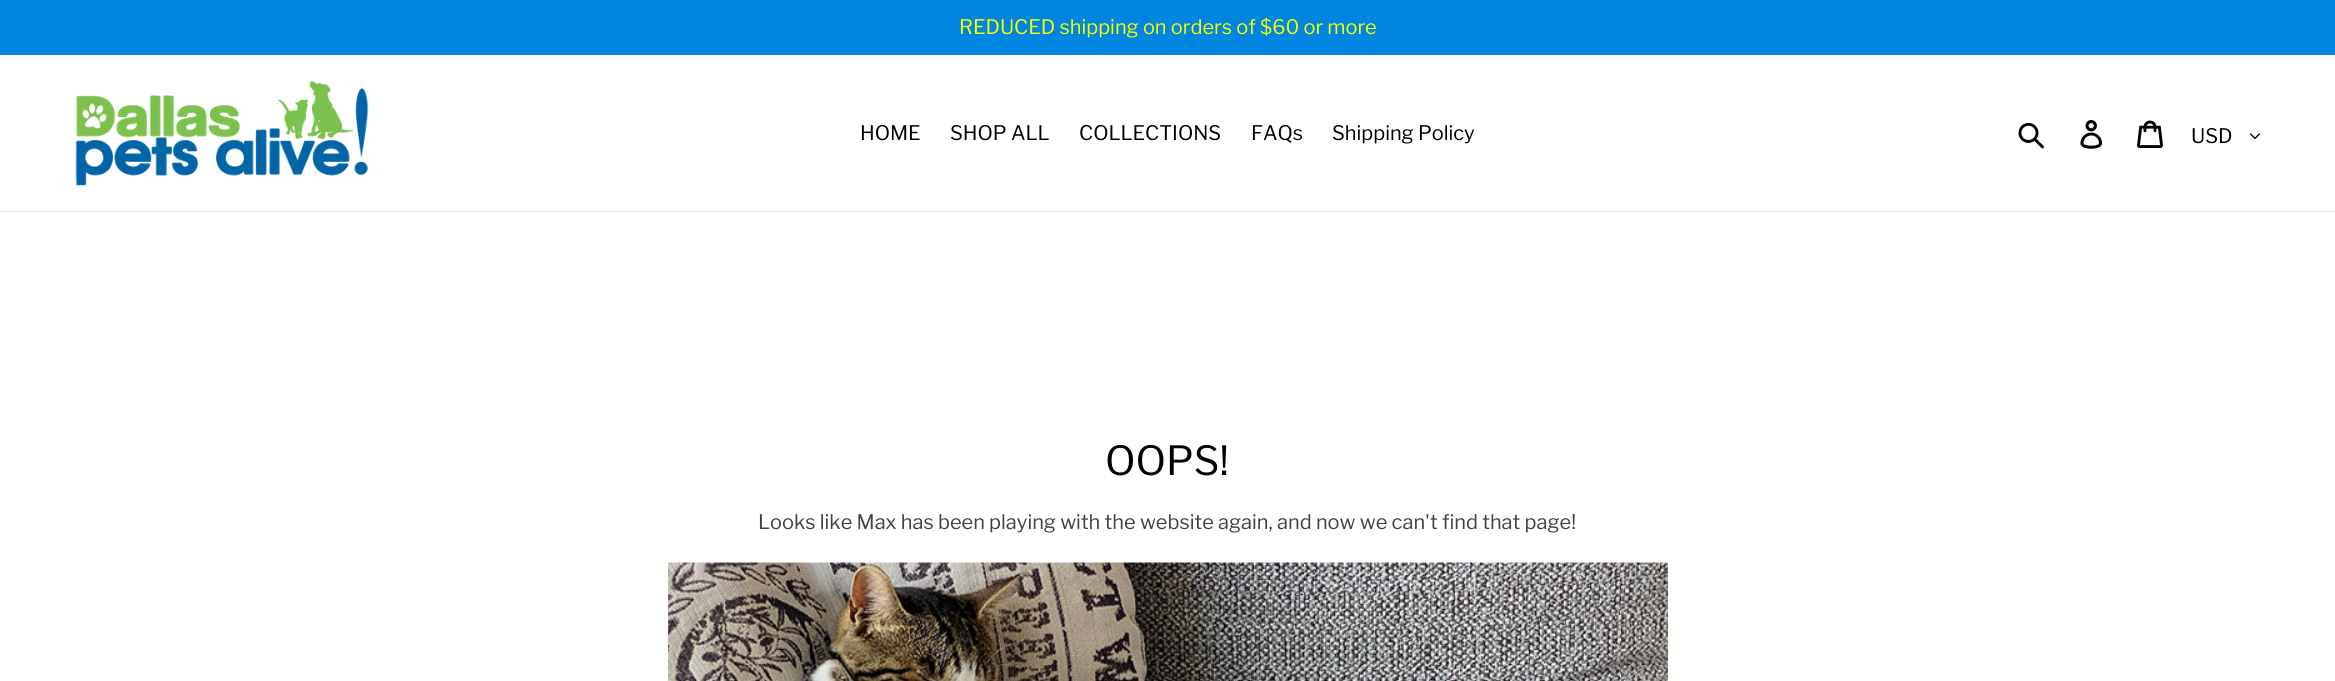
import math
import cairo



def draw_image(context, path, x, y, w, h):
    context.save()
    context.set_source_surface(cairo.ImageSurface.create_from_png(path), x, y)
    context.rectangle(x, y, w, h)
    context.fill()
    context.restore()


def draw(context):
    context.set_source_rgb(1, 1, 1)
    context.paint()
    context.set_source_rgb(0, 133 / 255, 224 / 255)
    context.rectangle(0, 0, 2335, 55)
    context.fill()
    context.set_source_rgb(232 / 255, 233 / 255, 235 / 255)
    context.rectangle(0, 211, 2335, 1)
    context.fill()
    draw_image(context, "images/1.png", 75, 80, 294, 106)
    draw_image(context, "images/2.png", 2018, 122, 26, 27)
    draw_image(context, "images/3.png", 2080, 120, 23, 29)
    draw_image(context, "images/4.png", 2137, 120, 26, 28)
    draw_image(context, "images/5.png", 2250, 133, 10, 6)
    draw_image(context, "images/6.png", 668, 562, 1000, 119)
    context.select_font_face("Libre Franklin")
    context.set_font_size(20)
    context.set_source_rgb(248 / 255, 1, 0)
    context.move_to(959, 34)
    context.show_text("REDUCED shipping on orders of $60 or more")
    context.set_source_rgb(0, 0, 0)
    context.move_to(860, 140)
    context.show_text("HOME")
    context.move_to(950, 140)
    context.show_text("SHOP ALL")
    context.move_to(1079, 140)
    context.show_text("COLLECTIONS")
    context.move_to(1251, 140)
    context.show_text("FAQs")
    context.move_to(1332, 140)
    context.show_text("Shipping Policy")
    context.move_to(2191, 143)
    context.show_text("USD")
    context.set_font_size(40)
    context.move_to(1105, 475)
    context.show_text("OOPS!")
    context.set_font_size(20)
    context.set_source_rgb(61 / 255, 66 / 255, 70 / 255)
    context.move_to(758, 529)
    context.show_text("Looks like Max has been playing with the website again, and now we can't find that page!")


surface = cairo.ImageSurface(cairo.Format.RGB24, 2335, 681)
context = cairo.Context(surface)
options = cairo.FontOptions()
options.set_hint_metrics(cairo.HintMetrics.OFF)
options.set_hint_style(cairo.HintStyle.NONE)
context.set_font_options(options)
context.set_miter_limit(4)
draw(context)
surface.write_to_png("out.png")
